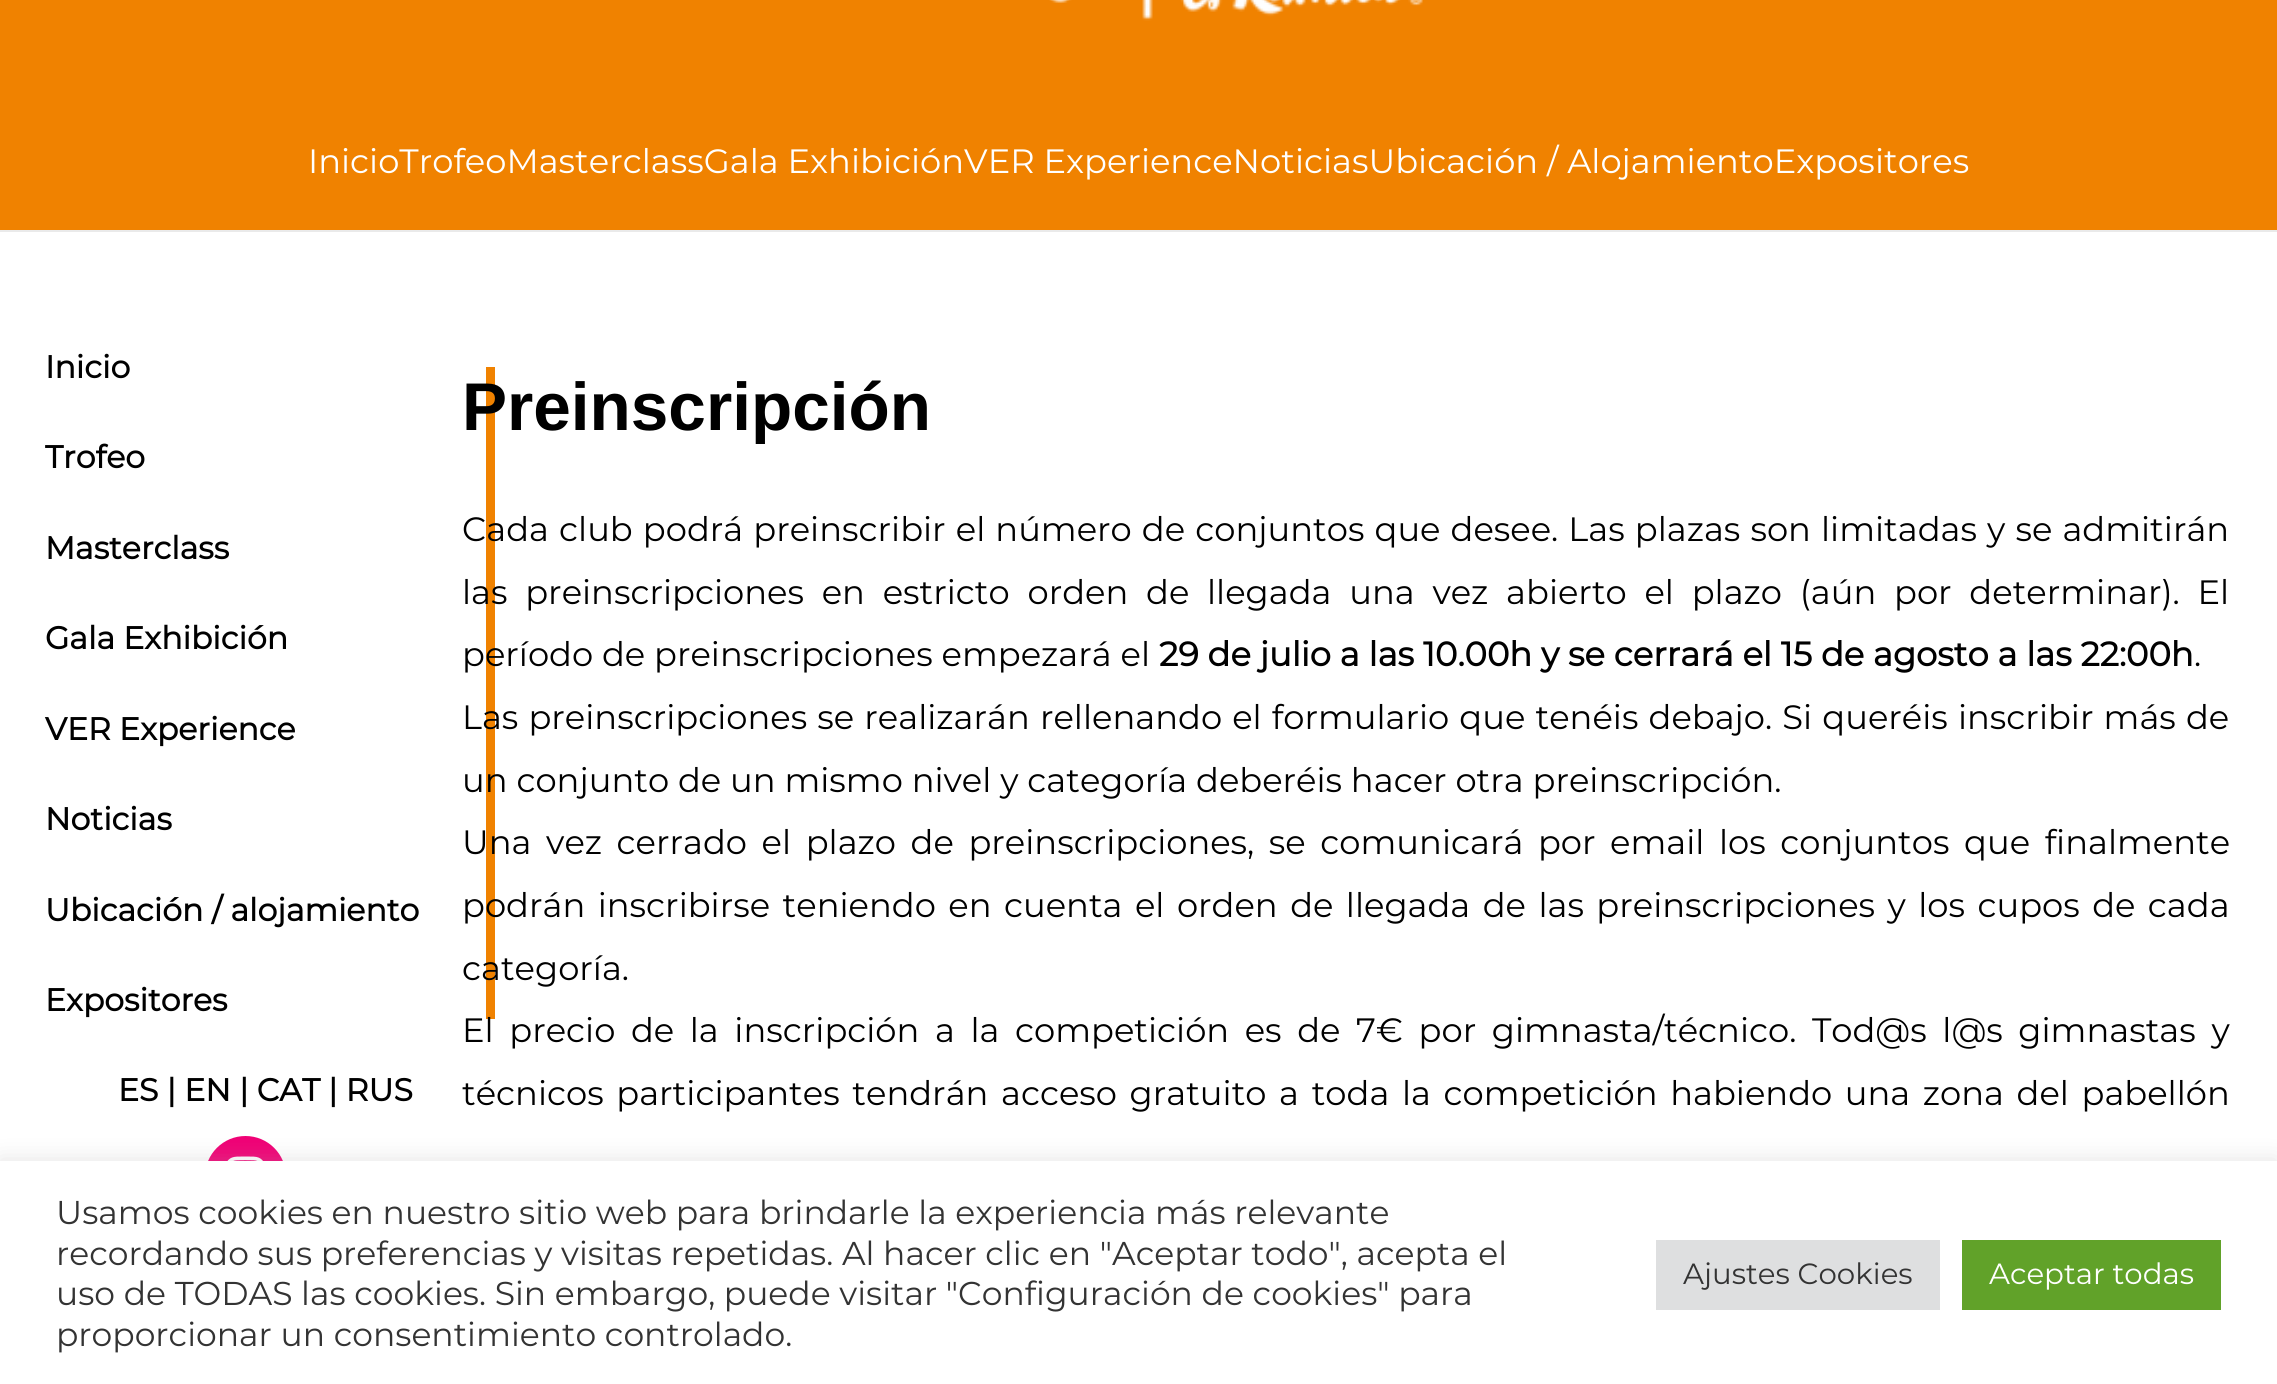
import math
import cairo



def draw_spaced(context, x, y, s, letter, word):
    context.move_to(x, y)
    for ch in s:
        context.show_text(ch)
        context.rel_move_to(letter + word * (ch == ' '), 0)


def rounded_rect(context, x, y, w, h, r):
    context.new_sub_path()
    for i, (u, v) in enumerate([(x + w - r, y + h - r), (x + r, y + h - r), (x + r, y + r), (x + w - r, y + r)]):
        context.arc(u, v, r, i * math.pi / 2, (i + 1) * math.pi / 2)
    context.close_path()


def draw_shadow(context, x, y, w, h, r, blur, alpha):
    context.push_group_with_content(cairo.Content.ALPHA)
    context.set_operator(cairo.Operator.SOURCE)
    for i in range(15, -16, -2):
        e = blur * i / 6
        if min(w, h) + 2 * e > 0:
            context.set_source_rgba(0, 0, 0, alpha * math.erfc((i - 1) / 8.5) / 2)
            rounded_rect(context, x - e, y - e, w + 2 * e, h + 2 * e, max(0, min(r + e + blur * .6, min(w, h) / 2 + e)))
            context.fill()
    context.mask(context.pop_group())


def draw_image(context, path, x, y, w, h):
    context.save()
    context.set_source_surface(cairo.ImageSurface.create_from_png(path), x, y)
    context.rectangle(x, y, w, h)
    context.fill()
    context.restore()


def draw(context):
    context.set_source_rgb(1, 1, 1)
    context.paint()
    context.set_source_rgb(240 / 255, 130 / 255, 0)
    context.rectangle(0, 0, 2277, 230)
    context.fill()
    context.set_source_rgb(234 / 255, 234 / 255, 234 / 255)
    context.rectangle(0, 230, 2277, 2)
    context.fill()
    draw_image(context, "images/1.png", 1049, 0, 374, 21)
    context.set_source_rgb(240 / 255, 130 / 255, 0)
    context.rectangle(486, 367, 9, 652)
    context.fill()
    context.set_source_rgb(240 / 255, 0, 117 / 255)
    context.arc(245.5, 1176.5, 40.5, 0, 2 * math.pi)
    context.fill()
    draw_image(context, "images/2.png", 227, 1156, 36, 5)
    context.set_source_rgb(172 / 255, 171 / 255, 171 / 255)
    draw_shadow(context, 0, 1159, 2277, 225, 0, 11, 0.3)
    context.set_source_rgb(1, 1, 1)
    context.rectangle(0, 1161, 2277, 223)
    context.fill()
    context.set_source_rgb(222 / 255, 223 / 255, 224 / 255)
    context.rectangle(1656, 1240, 284, 70)
    context.fill()
    context.set_source_rgb(97 / 255, 162 / 255, 41 / 255)
    context.rectangle(1962, 1240, 259, 70)
    context.fill()
    context.select_font_face("Montserrat")
    context.set_font_size(33.75)
    context.set_source_rgb(1, 1, 1)
    context.move_to(308, 173)
    context.show_text("InicioTrofeoMasterclassGala ExhibiciónVER ExperienceNoticiasUbicación / AlojamientoExpositores")
    context.select_font_face("Montserrat", cairo.FontSlant.NORMAL, cairo.FontWeight.BOLD)
    context.set_font_size(31.5)
    context.set_source_rgb(0, 0, 0)
    context.move_to(45, 378)
    context.show_text("Inicio")
    context.move_to(45, 468)
    context.show_text("Trofeo")
    context.move_to(45, 559)
    context.show_text("Masterclass")
    context.move_to(45, 649)
    context.show_text("Gala Exhibición")
    context.move_to(45, 740)
    context.show_text("VER Experience")
    context.move_to(45, 830)
    context.show_text("Noticias")
    context.move_to(45, 921)
    context.show_text("Ubicación / alojamiento")
    context.move_to(45, 1011)
    context.show_text("Expositores")
    context.move_to(118, 1101)
    context.show_text("ES | EN | CAT | RUS")
    context.select_font_face("Liberation Sans", cairo.FontSlant.NORMAL, cairo.FontWeight.BOLD)
    context.set_font_size(67.5)
    context.move_to(462, 430)
    context.show_text("Preinscripción")
    context.select_font_face("Montserrat")
    context.set_font_size(33.75)
    draw_spaced(context, 462, 541, "Cada club podrá preinscribir el número de conjuntos que desee. Las plazas son limitadas y se admitirán", 0, 1.25)
    draw_spaced(context, 462, 604, "las preinscripciones en estricto orden de llegada una vez abierto el plazo (aún por determinar). El", 0, 8.9)
    context.move_to(462, 666)
    context.show_text("período de preinscripciones empezará el")
    context.select_font_face("Montserrat", cairo.FontSlant.NORMAL, cairo.FontWeight.BOLD)
    context.move_to(1159, 666)
    context.show_text("29 de julio a las 10.00h y se cerrará el 15 de agosto a las 22:00h")
    context.select_font_face("Montserrat")
    context.move_to(2194, 666)
    context.show_text(".")
    draw_spaced(context, 462, 729, "Las preinscripciones se realizarán rellenando el formulario que tenéis debajo. Si queréis inscribir más de", 0, 1.3)
    context.move_to(462, 792)
    context.show_text("un conjunto de un mismo nivel y categoría deberéis hacer otra preinscripción.")
    draw_spaced(context, 462, 854, "Una vez cerrado el plazo de preinscripciones, se comunicará por email los conjuntos que finalmente", 0, 5.75)
    draw_spaced(context, 462, 917, "podrán inscribirse teniendo en cuenta el orden de llegada de las preinscripciones y los cupos de cada", 0, 3.6)
    context.move_to(462, 980)
    context.show_text("categoría.")
    draw_spaced(context, 462, 1042, "El precio de la inscripción a la competición es de 7€ por gimnasta/técnico. Tod@s l@s gimnastas y", 0, 6.75)
    draw_spaced(context, 462, 1105, "técnicos participantes tendrán acceso gratuito a toda la competición habiendo una zona del pabellón", 0, 3.75)
    context.set_font_size(33)
    context.set_source_rgb(51 / 255, 51 / 255, 51 / 255)
    context.move_to(56, 1224)
    context.show_text("Usamos cookies en nuestro sitio web para brindarle la experiencia más relevante")
    context.move_to(56, 1265)
    context.show_text("recordando sus preferencias y visitas repetidas. Al hacer clic en \"Aceptar todo\", acepta el")
    context.move_to(56, 1305)
    context.show_text("uso de TODAS las cookies. Sin embargo, puede visitar \"Configuración de cookies\" para")
    context.move_to(56, 1346)
    context.show_text("proporcionar un consentimiento controlado.")
    context.set_font_size(29.25)
    context.move_to(1683, 1284)
    context.show_text("Ajustes Cookies")
    context.set_source_rgb(1, 1, 1)
    context.move_to(1989, 1284)
    context.show_text("Aceptar todas")


surface = cairo.ImageSurface(cairo.Format.RGB24, 2277, 1384)
context = cairo.Context(surface)
options = cairo.FontOptions()
options.set_hint_metrics(cairo.HintMetrics.OFF)
options.set_hint_style(cairo.HintStyle.NONE)
context.set_font_options(options)
context.set_miter_limit(4)
draw(context)
surface.write_to_png("out.png")
